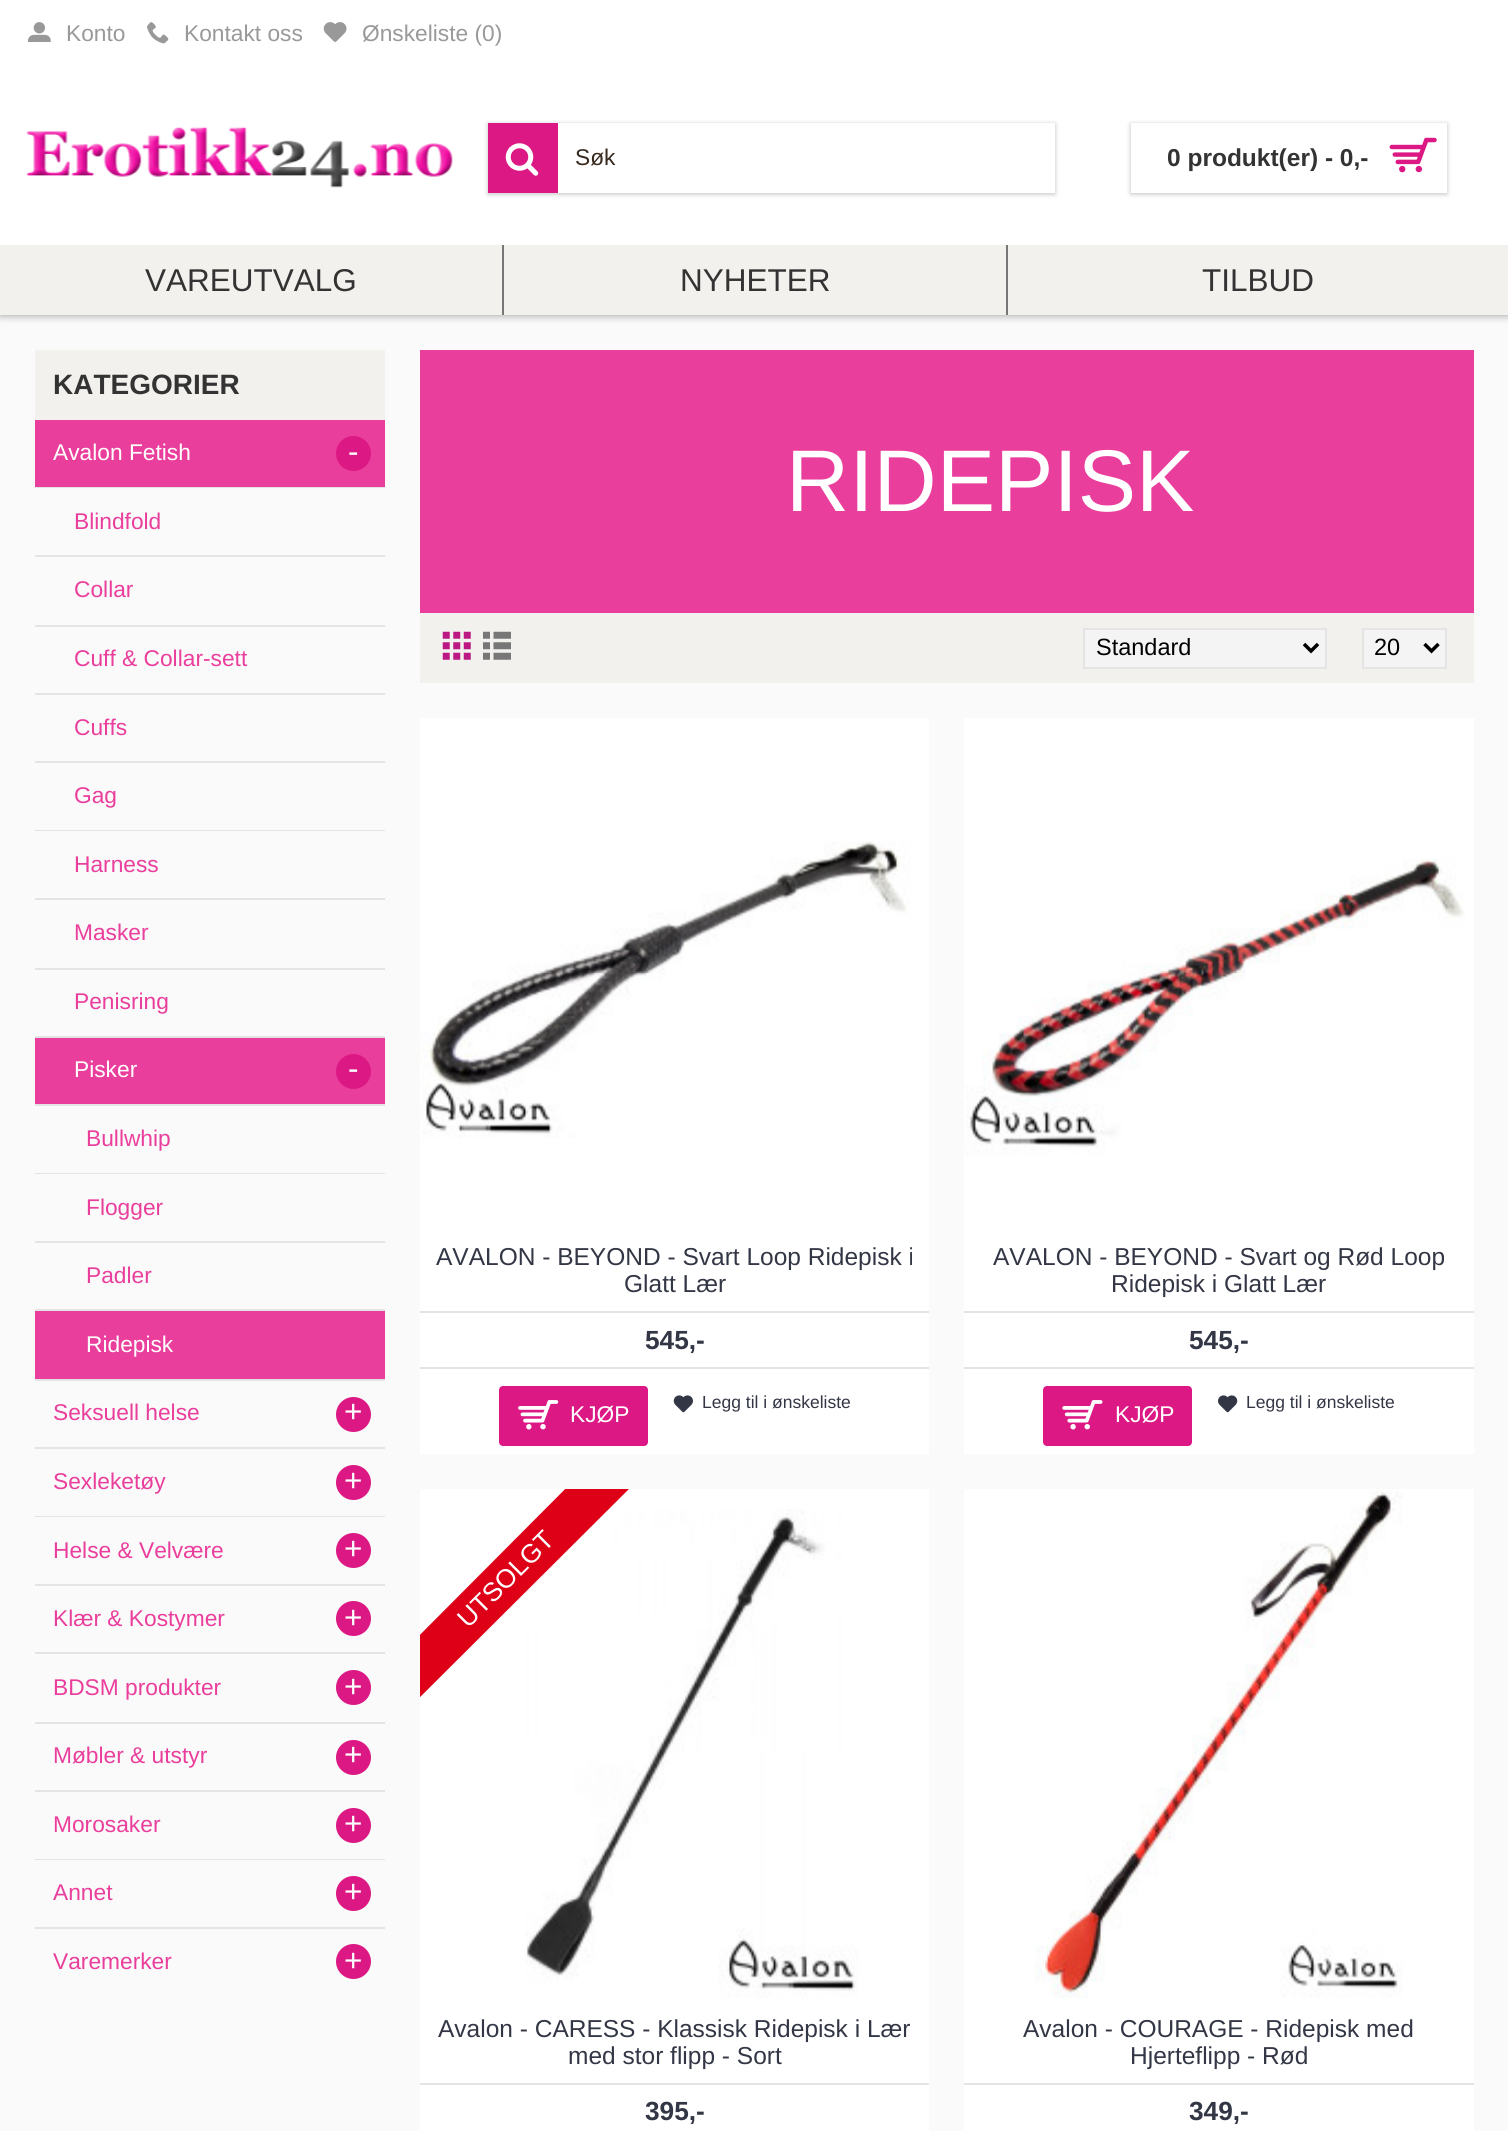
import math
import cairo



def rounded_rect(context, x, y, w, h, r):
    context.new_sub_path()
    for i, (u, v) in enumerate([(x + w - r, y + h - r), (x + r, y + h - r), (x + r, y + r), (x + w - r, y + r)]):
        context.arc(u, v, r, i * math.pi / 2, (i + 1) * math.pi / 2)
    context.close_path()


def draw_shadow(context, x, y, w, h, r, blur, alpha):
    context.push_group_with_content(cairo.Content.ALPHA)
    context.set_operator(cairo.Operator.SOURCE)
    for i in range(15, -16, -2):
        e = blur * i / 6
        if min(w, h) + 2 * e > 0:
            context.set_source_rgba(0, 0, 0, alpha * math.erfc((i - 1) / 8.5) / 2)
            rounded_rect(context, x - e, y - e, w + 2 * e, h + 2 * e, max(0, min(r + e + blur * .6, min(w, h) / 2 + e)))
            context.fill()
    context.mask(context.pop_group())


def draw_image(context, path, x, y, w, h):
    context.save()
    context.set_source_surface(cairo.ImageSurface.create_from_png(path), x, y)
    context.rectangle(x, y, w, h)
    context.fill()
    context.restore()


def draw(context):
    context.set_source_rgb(250 / 255, 250 / 255, 250 / 255)
    context.paint()
    context.set_source_rgb(0, 0, 0)
    draw_shadow(context, 0, 0, 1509, 315, 0, 4.5, 0.4)
    context.set_source_rgb(1, 1, 1)
    context.rectangle(0, 0, 1508, 245)
    context.fill()
    draw_image(context, "images/1.png", 28, 22, 23, 20)
    draw_image(context, "images/2.png", 147, 22, 22, 22)
    draw_image(context, "images/3.png", 323, 22, 24, 20)
    draw_image(context, "images/4.png", 26, 127, 427, 61)
    context.set_source_rgb(0, 0, 0)
    draw_shadow(context, 488, 124, 567, 70, 0, 2.5, 0.25)
    context.set_source_rgb(220 / 255, 24 / 255, 132 / 255)
    context.rectangle(488, 123, 70, 70)
    context.fill()
    draw_image(context, "images/5.png", 505, 143, 34, 33)
    context.set_source_rgb(1, 1, 1)
    context.rectangle(558, 123, 497, 70)
    context.fill()
    context.set_source_rgb(0, 0, 0)
    draw_shadow(context, 1131, 124, 316, 70, 0, 2.5, 0.25)
    context.set_source_rgb(1, 1, 1)
    context.rectangle(1131, 123, 316, 70)
    context.fill()
    draw_image(context, "images/6.png", 1389, 137, 48, 36)
    context.set_source_rgb(242 / 255, 241 / 255, 237 / 255)
    context.rectangle(0, 245, 1508, 70)
    context.fill()
    context.set_source_rgb(119 / 255, 119 / 255, 119 / 255)
    context.rectangle(502, 245, 2, 70)
    context.fill()
    context.rectangle(1006, 245, 2, 70)
    context.fill()
    context.set_source_rgb(242 / 255, 241 / 255, 237 / 255)
    context.rectangle(35, 350, 350, 70)
    context.fill()
    context.set_source_rgb(234 / 255, 62 / 255, 156 / 255)
    context.rectangle(35, 420, 350, 67)
    context.fill()
    context.set_source_rgb(228 / 255, 228 / 255, 228 / 255)
    context.rectangle(35, 487, 350, 1)
    context.fill()
    context.set_source_rgb(220 / 255, 24 / 255, 132 / 255)
    context.arc(353.5, 453.5, 17.5, 0, 2 * math.pi)
    context.fill()
    context.set_source_rgb(228 / 255, 228 / 255, 228 / 255)
    context.rectangle(35, 555, 350, 2)
    context.fill()
    context.rectangle(35, 625, 350, 2)
    context.fill()
    context.rectangle(35, 693, 350, 2)
    context.fill()
    context.rectangle(35, 761, 350, 2)
    context.fill()
    context.rectangle(35, 830, 350, 1)
    context.fill()
    context.rectangle(35, 898, 350, 2)
    context.fill()
    context.rectangle(35, 968, 350, 2)
    context.fill()
    context.rectangle(35, 1036, 350, 2)
    context.fill()
    context.set_source_rgb(234 / 255, 62 / 255, 156 / 255)
    context.rectangle(35, 1038, 350, 66)
    context.fill()
    context.set_source_rgb(228 / 255, 228 / 255, 228 / 255)
    context.rectangle(35, 1104, 350, 2)
    context.fill()
    context.set_source_rgb(220 / 255, 24 / 255, 132 / 255)
    context.arc(353.5, 1071.5, 17.5, 0, 2 * math.pi)
    context.fill()
    context.set_source_rgb(228 / 255, 228 / 255, 228 / 255)
    context.rectangle(35, 1173, 350, 1)
    context.fill()
    context.rectangle(35, 1241, 350, 2)
    context.fill()
    context.rectangle(35, 1309, 350, 2)
    context.fill()
    context.set_source_rgb(234 / 255, 62 / 255, 156 / 255)
    context.rectangle(35, 1311, 350, 68)
    context.fill()
    context.set_source_rgb(228 / 255, 228 / 255, 228 / 255)
    context.rectangle(35, 1379, 350, 2)
    context.fill()
    context.rectangle(35, 1447, 350, 2)
    context.fill()
    context.set_source_rgb(220 / 255, 24 / 255, 132 / 255)
    context.arc(353.5, 1414.5, 17.5, 0, 2 * math.pi)
    context.fill()
    context.set_source_rgb(228 / 255, 228 / 255, 228 / 255)
    context.rectangle(35, 1516, 350, 1)
    context.fill()
    context.set_source_rgb(220 / 255, 24 / 255, 132 / 255)
    context.arc(353.5, 1482.5, 17.5, 0, 2 * math.pi)
    context.fill()
    context.set_source_rgb(228 / 255, 228 / 255, 228 / 255)
    context.rectangle(35, 1584, 350, 2)
    context.fill()
    context.set_source_rgb(220 / 255, 24 / 255, 132 / 255)
    context.arc(353.5, 1550.5, 17.5, 0, 2 * math.pi)
    context.fill()
    context.set_source_rgb(228 / 255, 228 / 255, 228 / 255)
    context.rectangle(35, 1652, 350, 2)
    context.fill()
    context.set_source_rgb(220 / 255, 24 / 255, 132 / 255)
    context.arc(353.5, 1618.5, 17.5, 0, 2 * math.pi)
    context.fill()
    context.set_source_rgb(228 / 255, 228 / 255, 228 / 255)
    context.rectangle(35, 1722, 350, 2)
    context.fill()
    context.set_source_rgb(220 / 255, 24 / 255, 132 / 255)
    context.arc(353.5, 1687.5, 17.5, 0, 2 * math.pi)
    context.fill()
    context.set_source_rgb(228 / 255, 228 / 255, 228 / 255)
    context.rectangle(35, 1790, 350, 2)
    context.fill()
    context.set_source_rgb(220 / 255, 24 / 255, 132 / 255)
    context.arc(353.5, 1757.5, 17.5, 0, 2 * math.pi)
    context.fill()
    context.set_source_rgb(228 / 255, 228 / 255, 228 / 255)
    context.rectangle(35, 1859, 350, 1)
    context.fill()
    context.set_source_rgb(220 / 255, 24 / 255, 132 / 255)
    context.arc(353.5, 1825.5, 17.5, 0, 2 * math.pi)
    context.fill()
    context.set_source_rgb(228 / 255, 228 / 255, 228 / 255)
    context.rectangle(35, 1927, 350, 2)
    context.fill()
    context.set_source_rgb(220 / 255, 24 / 255, 132 / 255)
    context.arc(353.5, 1893.5, 17.5, 0, 2 * math.pi)
    context.fill()
    context.arc(353.5, 1961.5, 17.5, 0, 2 * math.pi)
    context.fill()
    context.set_source_rgb(234 / 255, 62 / 255, 156 / 255)
    context.rectangle(420, 350, 1054, 263)
    context.fill()
    context.set_source_rgb(242 / 255, 241 / 255, 237 / 255)
    context.rectangle(420, 613, 1054, 70)
    context.fill()
    draw_image(context, "images/7.png", 442, 631, 29, 29)
    draw_image(context, "images/8.png", 483, 631, 28, 29)
    context.set_source_rgb(244 / 255, 244 / 255, 244 / 255)
    context.rectangle(1084, 629, 242, 39)
    context.fill_preserve()
    context.set_source_rgb(228 / 255, 228 / 255, 228 / 255)
    context.stroke()
    context.new_path()
    context.move_to(1304, 644)
    context.line_to(1311, 651)
    context.line_to(1318, 644)
    context.set_source_rgb(0, 0, 0)
    context.set_line_width(3.5)
    context.stroke()
    context.set_source_rgb(244 / 255, 244 / 255, 244 / 255)
    context.rectangle(1363, 629, 83, 39)
    context.fill_preserve()
    context.set_source_rgb(228 / 255, 228 / 255, 228 / 255)
    context.set_line_width(2)
    context.stroke()
    context.new_path()
    context.move_to(1424.5, 644)
    context.line_to(1431.5, 651)
    context.line_to(1438.5, 644)
    context.set_source_rgb(0, 0, 0)
    context.set_line_width(3.5)
    context.stroke()
    context.set_source_rgb(1, 1, 1)
    context.rectangle(420, 718, 509, 736)
    context.fill()
    draw_image(context, "images/9.png", 420, 841, 491, 297)
    context.set_source_rgb(228 / 255, 228 / 255, 228 / 255)
    context.rectangle(420, 1311, 509, 2)
    context.fill()
    context.rectangle(420, 1367, 509, 2)
    context.fill()
    context.set_source_rgb(220 / 255, 24 / 255, 132 / 255)
    rounded_rect(context, 499, 1386, 149, 60, 4)
    context.fill()
    draw_image(context, "images/10.png", 518, 1400, 41, 30)
    draw_image(context, "images/11.png", 673, 1395, 20, 18)
    context.set_source_rgb(1, 1, 1)
    context.rectangle(964, 718, 510, 736)
    context.fill()
    draw_image(context, "images/12.png", 965, 858, 500, 298)
    context.set_source_rgb(228 / 255, 228 / 255, 228 / 255)
    context.rectangle(964, 1311, 510, 2)
    context.fill()
    context.rectangle(964, 1367, 510, 2)
    context.fill()
    context.set_source_rgb(220 / 255, 24 / 255, 132 / 255)
    rounded_rect(context, 1043, 1386, 149, 60, 4)
    context.fill()
    draw_image(context, "images/13.png", 1062, 1400, 41, 30)
    draw_image(context, "images/14.png", 1218, 1395, 20, 18)
    context.set_source_rgb(1, 1, 1)
    context.rectangle(420, 1489, 509, 642)
    context.fill()
    draw_image(context, "images/15.png", 525, 1509, 334, 489)
    context.save()
    context.rectangle(420, 1489, 509, 510)
    context.clip()
    context.set_source_rgb(221 / 255, 0, 23 / 255)
    context.new_path()
    context.move_to(361, 1694)
    context.line_to(608, 1446)
    context.line_to(640, 1478)
    context.line_to(392, 1725)
    context.close_path()
    context.fill()
    context.restore()
    context.set_source_rgb(228 / 255, 228 / 255, 228 / 255)
    context.rectangle(420, 2083, 509, 2)
    context.fill()
    context.set_source_rgb(1, 1, 1)
    context.rectangle(964, 1489, 510, 642)
    context.fill()
    draw_image(context, "images/16.png", 1035, 1489, 368, 509)
    context.set_source_rgb(228 / 255, 228 / 255, 228 / 255)
    context.rectangle(964, 2083, 510, 2)
    context.fill()
    context.select_font_face("Liberation Sans")
    context.set_font_size(22.75)
    context.set_source_rgb(153 / 255, 153 / 255, 153 / 255)
    context.move_to(66, 41)
    context.show_text("Konto")
    context.move_to(184, 41)
    context.show_text("Kontakt oss")
    context.move_to(362, 41)
    context.show_text("Ønskeliste (0)")
    context.set_source_rgb(55 / 255, 41 / 255, 30 / 255)
    context.move_to(575, 165)
    context.show_text("Søk")
    context.select_font_face("Liberation Sans", cairo.FontSlant.NORMAL, cairo.FontWeight.BOLD)
    context.set_font_size(24.5)
    context.set_source_rgb(51 / 255, 51 / 255, 51 / 255)
    context.move_to(1167, 166)
    context.show_text("0 produkt(er) - 0,-")
    context.select_font_face("Liberation Sans")
    context.set_font_size(31.5)
    context.move_to(145, 291)
    context.show_text("VAREUTVALG")
    context.move_to(680, 291)
    context.show_text("NYHETER")
    context.move_to(1202, 291)
    context.show_text("TILBUD")
    context.select_font_face("Liberation Sans", cairo.FontSlant.NORMAL, cairo.FontWeight.BOLD)
    context.set_font_size(28)
    context.move_to(53, 394)
    context.show_text("KATEGORIER")
    context.select_font_face("Liberation Sans")
    context.set_font_size(22.75)
    context.set_source_rgb(1, 1, 1)
    context.move_to(53, 460)
    context.show_text("Avalon Fetish")
    context.set_font_size(31.5)
    context.move_to(348, 462)
    context.show_text("-")
    context.set_font_size(22.75)
    context.set_source_rgb(234 / 255, 62 / 255, 156 / 255)
    context.move_to(74, 529)
    context.show_text("Blindfold")
    context.move_to(74, 597)
    context.show_text("Collar")
    context.move_to(74, 666)
    context.show_text("Cuff & Collar-sett")
    context.move_to(74, 735)
    context.show_text("Cuffs")
    context.move_to(74, 803)
    context.show_text("Gag")
    context.move_to(74, 872)
    context.show_text("Harness")
    context.move_to(74, 940)
    context.show_text("Masker")
    context.move_to(74, 1009)
    context.show_text("Penisring")
    context.set_source_rgb(1, 1, 1)
    context.move_to(74, 1077)
    context.show_text("Pisker")
    context.set_font_size(31.5)
    context.move_to(348, 1079)
    context.show_text("-")
    context.set_font_size(22.75)
    context.set_source_rgb(234 / 255, 62 / 255, 156 / 255)
    context.move_to(86, 1146)
    context.show_text("Bullwhip")
    context.move_to(86, 1215)
    context.show_text("Flogger")
    context.move_to(86, 1283)
    context.show_text("Padler")
    context.set_source_rgb(1, 1, 1)
    context.move_to(86, 1352)
    context.show_text("Ridepisk")
    context.set_source_rgb(234 / 255, 62 / 255, 156 / 255)
    context.move_to(53, 1420)
    context.show_text("Seksuell helse")
    context.set_font_size(31.5)
    context.set_source_rgb(1, 1, 1)
    context.move_to(344, 1422)
    context.show_text("+")
    context.set_font_size(22.75)
    context.set_source_rgb(234 / 255, 62 / 255, 156 / 255)
    context.move_to(53, 1489)
    context.show_text("Sexleketøy")
    context.set_font_size(31.5)
    context.set_source_rgb(1, 1, 1)
    context.move_to(344, 1491)
    context.show_text("+")
    context.set_font_size(22.75)
    context.set_source_rgb(234 / 255, 62 / 255, 156 / 255)
    context.move_to(53, 1558)
    context.show_text("Helse & Velvære")
    context.set_font_size(31.5)
    context.set_source_rgb(1, 1, 1)
    context.move_to(344, 1559)
    context.show_text("+")
    context.set_font_size(22.75)
    context.set_source_rgb(234 / 255, 62 / 255, 156 / 255)
    context.move_to(53, 1626)
    context.show_text("Klær & Kostymer")
    context.set_font_size(31.5)
    context.set_source_rgb(1, 1, 1)
    context.move_to(344, 1628)
    context.show_text("+")
    context.set_font_size(22.75)
    context.set_source_rgb(234 / 255, 62 / 255, 156 / 255)
    context.move_to(53, 1695)
    context.show_text("BDSM produkter")
    context.set_font_size(31.5)
    context.set_source_rgb(1, 1, 1)
    context.move_to(344, 1697)
    context.show_text("+")
    context.set_font_size(22.75)
    context.set_source_rgb(234 / 255, 62 / 255, 156 / 255)
    context.move_to(53, 1763)
    context.show_text("Møbler & utstyr")
    context.set_font_size(31.5)
    context.set_source_rgb(1, 1, 1)
    context.move_to(344, 1765)
    context.show_text("+")
    context.set_font_size(22.75)
    context.set_source_rgb(234 / 255, 62 / 255, 156 / 255)
    context.move_to(53, 1832)
    context.show_text("Morosaker")
    context.set_font_size(31.5)
    context.set_source_rgb(1, 1, 1)
    context.move_to(344, 1834)
    context.show_text("+")
    context.set_font_size(22.75)
    context.set_source_rgb(234 / 255, 62 / 255, 156 / 255)
    context.move_to(53, 1900)
    context.show_text("Annet")
    context.set_font_size(31.5)
    context.set_source_rgb(1, 1, 1)
    context.move_to(344, 1902)
    context.show_text("+")
    context.set_font_size(22.75)
    context.set_source_rgb(234 / 255, 62 / 255, 156 / 255)
    context.move_to(53, 1969)
    context.show_text("Varemerker")
    context.set_font_size(31.5)
    context.set_source_rgb(1, 1, 1)
    context.move_to(344, 1971)
    context.show_text("+")
    context.set_font_size(87.5)
    context.move_to(786, 511)
    context.show_text("RIDEPISK")
    context.set_font_size(23.5)
    context.set_source_rgb(0, 0, 0)
    context.move_to(1096, 655)
    context.show_text("Standard")
    context.move_to(1374, 655)
    context.show_text("20")
    context.set_font_size(24.5)
    context.set_source_rgb(51 / 255, 55 / 255, 69 / 255)
    context.move_to(436, 1265)
    context.show_text("AVALON - BEYOND - Svart Loop Ridepisk i")
    context.move_to(624, 1292)
    context.show_text("Glatt Lær")
    context.select_font_face("Liberation Sans", cairo.FontSlant.NORMAL, cairo.FontWeight.BOLD)
    context.set_font_size(26.25)
    context.move_to(645, 1349)
    context.show_text("545,-")
    context.select_font_face("Liberation Sans")
    context.set_font_size(22.75)
    context.set_source_rgb(1, 1, 1)
    context.move_to(570, 1422)
    context.show_text("KJØP")
    context.set_font_size(17.5)
    context.set_source_rgb(51 / 255, 55 / 255, 69 / 255)
    context.move_to(702, 1408)
    context.show_text("Legg til i ønskeliste")
    context.set_font_size(24.5)
    context.move_to(993, 1265)
    context.show_text("AVALON - BEYOND - Svart og Rød Loop")
    context.move_to(1111, 1292)
    context.show_text("Ridepisk i Glatt Lær")
    context.select_font_face("Liberation Sans", cairo.FontSlant.NORMAL, cairo.FontWeight.BOLD)
    context.set_font_size(26.25)
    context.move_to(1189, 1349)
    context.show_text("545,-")
    context.select_font_face("Liberation Sans")
    context.set_font_size(22.75)
    context.set_source_rgb(1, 1, 1)
    context.move_to(1115, 1422)
    context.show_text("KJØP")
    context.set_font_size(17.5)
    context.set_source_rgb(51 / 255, 55 / 255, 69 / 255)
    context.move_to(1246, 1408)
    context.show_text("Legg til i ønskeliste")
    context.set_font_size(26.25)
    context.set_source_rgb(1, 1, 1)
    context.save()
    context.translate(468, 1629)
    context.rotate(-45 * math.pi / 180)
    context.move_to(0, 0)
    context.show_text("UTSOLGT")
    context.restore()
    context.set_font_size(24.5)
    context.set_source_rgb(51 / 255, 55 / 255, 69 / 255)
    context.move_to(438, 2037)
    context.show_text("Avalon - CARESS - Klassisk Ridepisk i Lær")
    context.move_to(568, 2064)
    context.show_text("med stor flipp - Sort")
    context.select_font_face("Liberation Sans", cairo.FontSlant.NORMAL, cairo.FontWeight.BOLD)
    context.set_font_size(26.25)
    context.move_to(645, 2120)
    context.show_text("395,-")
    context.select_font_face("Liberation Sans")
    context.set_font_size(24.5)
    context.move_to(1023, 2037)
    context.show_text("Avalon - COURAGE - Ridepisk med")
    context.move_to(1130, 2064)
    context.show_text("Hjerteflipp - Rød")
    context.select_font_face("Liberation Sans", cairo.FontSlant.NORMAL, cairo.FontWeight.BOLD)
    context.set_font_size(26.25)
    context.move_to(1189, 2120)
    context.show_text("349,-")


surface = cairo.ImageSurface(cairo.Format.RGB24, 1508, 2131)
context = cairo.Context(surface)
options = cairo.FontOptions()
options.set_hint_metrics(cairo.HintMetrics.OFF)
options.set_hint_style(cairo.HintStyle.NONE)
context.set_font_options(options)
context.set_miter_limit(4)
draw(context)
surface.write_to_png("out.png")
